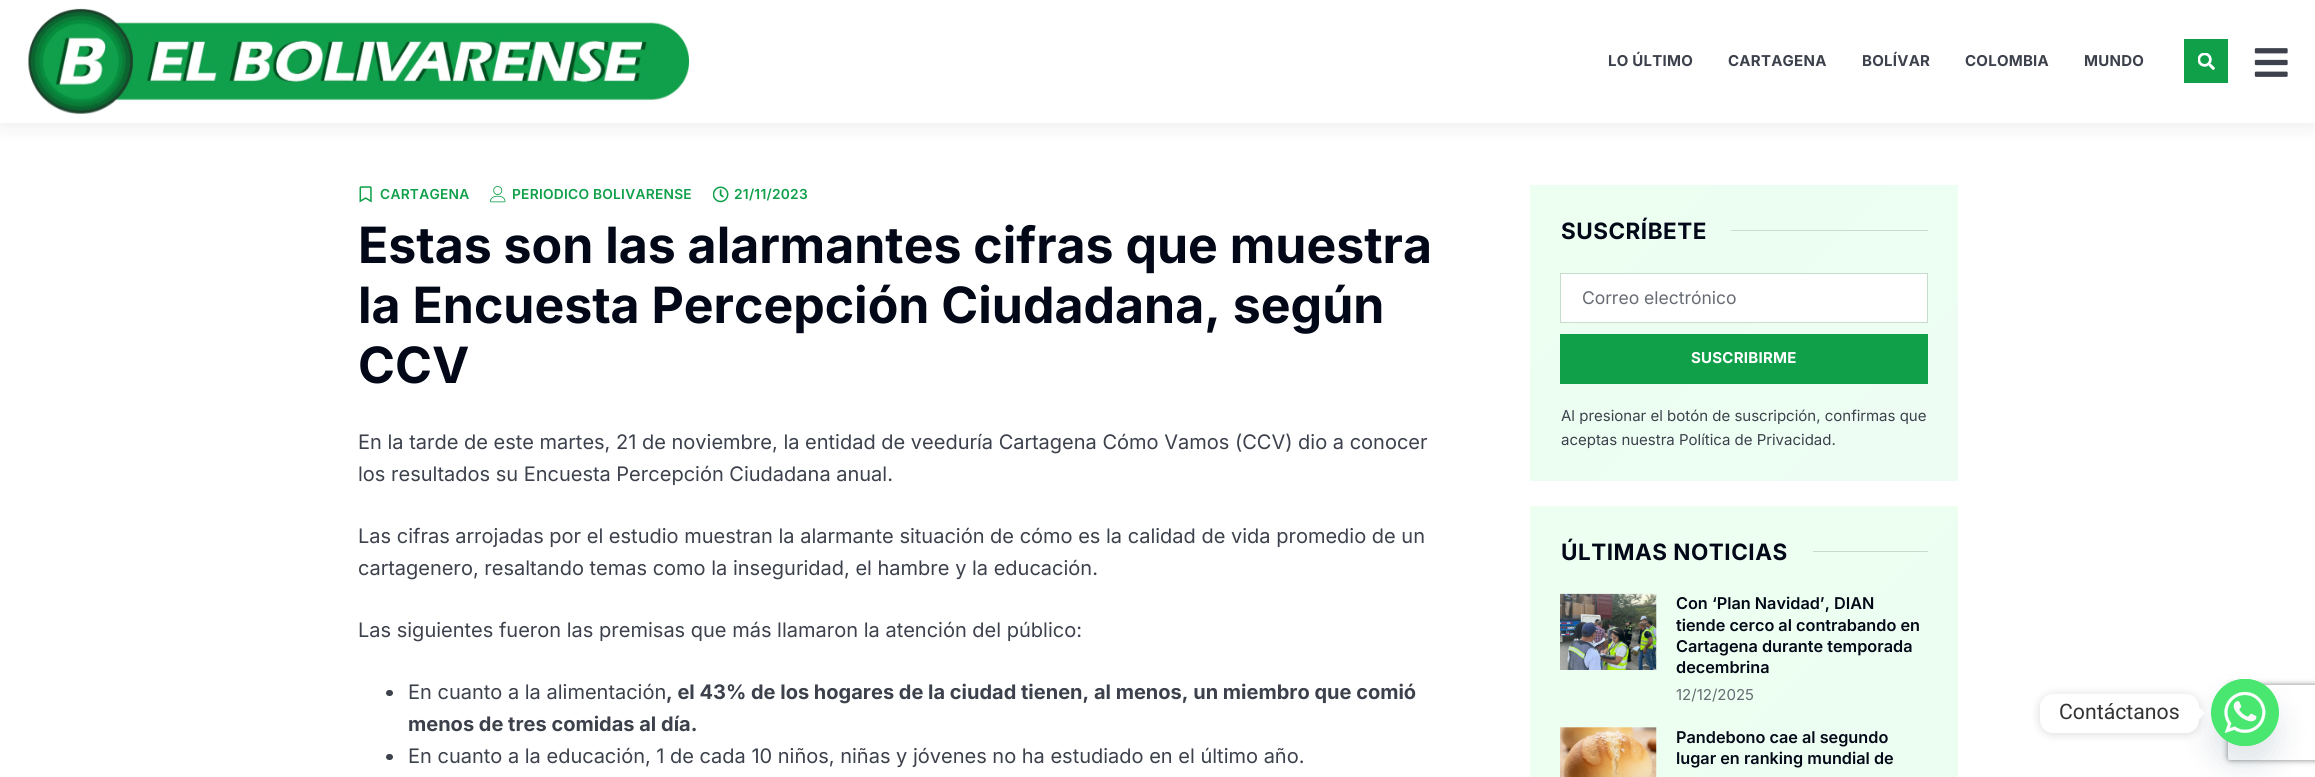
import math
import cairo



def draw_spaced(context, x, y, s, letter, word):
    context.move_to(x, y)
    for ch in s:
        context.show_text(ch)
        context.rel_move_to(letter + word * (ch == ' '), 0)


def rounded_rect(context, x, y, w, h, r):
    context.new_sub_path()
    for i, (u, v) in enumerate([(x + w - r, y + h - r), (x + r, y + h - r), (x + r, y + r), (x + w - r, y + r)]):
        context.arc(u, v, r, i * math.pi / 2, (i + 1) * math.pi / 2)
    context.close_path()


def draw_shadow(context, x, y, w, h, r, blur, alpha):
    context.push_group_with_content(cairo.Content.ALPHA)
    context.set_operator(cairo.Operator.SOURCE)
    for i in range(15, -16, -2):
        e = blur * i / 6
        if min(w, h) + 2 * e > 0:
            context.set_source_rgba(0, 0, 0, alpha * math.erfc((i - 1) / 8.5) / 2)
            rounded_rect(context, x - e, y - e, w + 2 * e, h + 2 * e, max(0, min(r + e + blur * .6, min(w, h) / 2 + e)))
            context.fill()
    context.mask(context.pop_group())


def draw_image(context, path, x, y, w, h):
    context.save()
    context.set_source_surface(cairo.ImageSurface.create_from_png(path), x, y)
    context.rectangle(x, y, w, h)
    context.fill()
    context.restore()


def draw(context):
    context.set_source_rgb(1, 1, 1)
    context.paint()
    context.set_source_rgb(15 / 255, 24 / 255, 63 / 255)
    draw_shadow(context, 0, 4, 2315, 122, 0, 10, 0.08)
    context.set_source_rgb(1, 1, 1)
    context.rectangle(0, 0, 2315, 123)
    context.fill()
    draw_image(context, "images/1.png", 28, 8, 662, 106)
    context.set_source_rgb(16 / 255, 160 / 255, 74 / 255)
    context.rectangle(2184, 39, 44, 44)
    context.fill()
    draw_image(context, "images/2.png", 2198, 53, 17, 17)
    draw_image(context, "images/3.png", 2254, 48, 34, 29)
    draw_image(context, "images/4.png", 359, 186, 13, 17)
    draw_image(context, "images/5.png", 490, 186, 16, 17)
    draw_image(context, "images/6.png", 713, 186, 16, 17)
    context.set_source_rgb(60 / 255, 65 / 255, 76 / 255)
    rounded_rect(context, 386, 690, 7, 6, 3)
    context.fill()
    rounded_rect(context, 386, 754, 7, 6, 3)
    context.fill()
    gradient = cairo.LinearGradient(1563, 152, 1925, 514)
    gradient.add_color_stop_rgba(0, 236 / 255, 1, 240 / 255, 1)
    gradient.add_color_stop_rgba(1, 237 / 255, 253 / 255, 244 / 255, 1)
    context.set_source(gradient)
    context.rectangle(1530, 185, 428, 296)
    context.fill()
    context.set_source_rgb(198 / 255, 221 / 255, 205 / 255)
    context.rectangle(1731, 230, 197, 1)
    context.fill()
    context.set_source_rgb(1, 1, 1)
    context.rectangle(1560.5, 273.5, 367, 49)
    context.fill_preserve()
    context.set_source_rgb(198 / 255, 221 / 255, 205 / 255)
    context.set_line_width(1)
    context.stroke()
    context.set_source_rgb(16 / 255, 160 / 255, 74 / 255)
    context.rectangle(1560, 334, 368, 50)
    context.fill()
    context.save()
    context.set_fill_rule(cairo.FillRule.EVEN_ODD)
    context.new_path()
    context.move_to(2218, 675)
    context.line_to(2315, 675)
    context.line_to(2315, 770)
    context.line_to(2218, 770)
    context.close_path()
    context.move_to(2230.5, 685)
    context.line_to(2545.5, 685)
    context.curve_to(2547, 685, 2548, 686, 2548, 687.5)
    context.line_to(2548, 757.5)
    context.curve_to(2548, 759, 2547, 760, 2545.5, 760)
    context.line_to(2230.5, 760)
    context.curve_to(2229, 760, 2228, 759, 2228, 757.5)
    context.line_to(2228, 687.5)
    context.curve_to(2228, 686, 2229, 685, 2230.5, 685)
    context.close_path()
    context.clip()
    context.set_source_rgb(128 / 255, 128 / 255, 128 / 255)
    draw_shadow(context, 2228, 685, 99, 75, 2.5, 3, 1)
    context.restore()
    gradient = cairo.LinearGradient(1306, 730, 2181, 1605)
    gradient.add_color_stop_rgba(0, 236 / 255, 1, 240 / 255, 1)
    gradient.add_color_stop_rgba(1, 237 / 255, 253 / 255, 244 / 255, 1)
    context.set_source(gradient)
    context.rectangle(1530, 506, 428, 271)
    context.fill()
    context.set_source_rgb(198 / 255, 221 / 255, 205 / 255)
    context.rectangle(1813, 551, 115, 1)
    context.fill()
    draw_image(context, "images/7.png", 1560, 593, 97, 77)
    draw_image(context, "images/8.png", 1560, 727, 97, 50)
    context.set_source_rgb(73 / 255, 104 / 255, 126 / 255)
    draw_shadow(context, 2211, 699, 68, 67, 33.5, 15, 0.16)
    context.set_source_rgb(73 / 255, 230 / 255, 112 / 255)
    rounded_rect(context, 2211, 679, 68, 67, 33.5)
    context.fill()
    draw_image(context, "images/9.png", 2211, 679, 68, 67)
    context.set_source_rgb(0, 0, 0)
    draw_shadow(context, 2040, 695, 159, 39, 13, 5, 0.15)
    context.set_source_rgb(1, 1, 1)
    rounded_rect(context, 2040, 694, 159, 39, 13)
    context.fill()
    context.new_path()
    context.move_to(2199, 719.5)
    context.line_to(2199, 707)
    context.line_to(2205, 713)
    context.close_path()
    context.fill()
    context.select_font_face("Inter", cairo.FontSlant.NORMAL, cairo.FontWeight.BOLD)
    context.set_font_size(15)
    context.set_source_rgb(60 / 255, 65 / 255, 76 / 255)
    draw_spaced(context, 1608, 66, "LO ÚLTIMO", 0.25, 0)
    draw_spaced(context, 1728, 66, "CARTAGENA", 0.25, 0)
    draw_spaced(context, 1862, 66, "BOLÍVAR", 0.25, 0)
    draw_spaced(context, 1965, 66, "COLOMBIA", 0.25, 0)
    draw_spaced(context, 2084, 66, "MUNDO", 0.25, 0)
    context.select_font_face("Inter SemiBold")
    context.set_font_size(13.75)
    context.set_source_rgb(16 / 255, 160 / 255, 74 / 255)
    draw_spaced(context, 380, 199, "CARTAGENA", 0.25, 0)
    draw_spaced(context, 512, 199, "PERIODICO BOLIVARENSE", 0.25, 0)
    draw_spaced(context, 734, 199, "21/11/2023", 0.25, 0)
    context.select_font_face("Inter", cairo.FontSlant.NORMAL, cairo.FontWeight.BOLD)
    context.set_font_size(50)
    context.set_source_rgb(2 / 255, 8 / 255, 23 / 255)
    context.move_to(358, 263)
    context.show_text("Estas son las alarmantes cifras que muestra")
    context.move_to(358, 323)
    context.show_text("la Encuesta Percepción Ciudadana, según")
    context.move_to(358, 383)
    context.show_text("CCV")
    context.select_font_face("Inter")
    context.set_font_size(20)
    context.set_source_rgb(60 / 255, 65 / 255, 76 / 255)
    context.move_to(358, 449)
    context.show_text("En la tarde de este martes, 21 de noviembre, la entidad de veeduría Cartagena Cómo Vamos (CCV) dio a conocer")
    context.move_to(358, 481)
    context.show_text("los resultados su Encuesta Percepción Ciudadana anual.")
    context.move_to(358, 543)
    context.show_text("Las cifras arrojadas por el estudio muestran la alarmante situación de cómo es la calidad de vida promedio de un")
    context.move_to(358, 575)
    context.show_text("cartagenero, resaltando temas como la inseguridad, el hambre y la educación.")
    context.move_to(358, 637)
    context.show_text("Las siguientes fueron las premisas que más llamaron la atención del público:")
    context.move_to(408, 699)
    context.show_text("En cuanto a la alimentación")
    context.select_font_face("Inter", cairo.FontSlant.NORMAL, cairo.FontWeight.BOLD)
    context.move_to(666, 699)
    context.show_text(", el 43% de los hogares de la ciudad tienen, al menos, un miembro que comió")
    context.move_to(408, 731)
    context.show_text("menos de tres comidas al día.")
    context.select_font_face("Inter")
    context.move_to(408, 763)
    context.show_text("En cuanto a la educación, 1 de cada 10 niños, niñas y jóvenes no ha estudiado en el último año.")
    context.select_font_face("Inter", cairo.FontSlant.NORMAL, cairo.FontWeight.BOLD)
    context.set_font_size(22.5)
    context.set_source_rgb(2 / 255, 8 / 255, 23 / 255)
    draw_spaced(context, 1561, 239, "SUSCRÍBETE", 0.5, 0)
    context.select_font_face("Inter")
    context.set_font_size(17.5)
    context.set_source_rgb(103 / 255, 107 / 255, 116 / 255)
    context.move_to(1582, 304)
    context.show_text("Correo electrónico")
    context.select_font_face("Inter", cairo.FontSlant.NORMAL, cairo.FontWeight.BOLD)
    context.set_font_size(15)
    context.set_source_rgb(1, 1, 1)
    draw_spaced(context, 1691, 363, "SUSCRIBIRME", 0.25, 0)
    context.select_font_face("Inter")
    context.set_source_rgb(60 / 255, 65 / 255, 76 / 255)
    context.move_to(1561, 421)
    context.show_text("Al presionar el botón de suscripción, confirmas que")
    context.move_to(1561, 445)
    context.show_text("aceptas nuestra Política de Privacidad.")
    context.select_font_face("Inter", cairo.FontSlant.NORMAL, cairo.FontWeight.BOLD)
    context.set_font_size(22.5)
    context.set_source_rgb(2 / 255, 8 / 255, 23 / 255)
    draw_spaced(context, 1561, 560, "ÚLTIMAS NOTICIAS", 0.5, 0)
    context.select_font_face("Inter SemiBold")
    context.set_font_size(16.25)
    context.move_to(1676, 609)
    context.show_text("Con ‘Plan Navidad’, DIAN")
    context.move_to(1676, 631)
    context.show_text("tiende cerco al contrabando en")
    context.move_to(1676, 652)
    context.show_text("Cartagena durante temporada")
    context.move_to(1676, 673)
    context.show_text("decembrina")
    context.select_font_face("Inter")
    context.set_font_size(15)
    context.set_source_rgb(103 / 255, 107 / 255, 116 / 255)
    context.move_to(1676, 700)
    context.show_text("12/12/2025")
    context.select_font_face("Inter SemiBold")
    context.set_font_size(16.25)
    context.set_source_rgb(2 / 255, 8 / 255, 23 / 255)
    context.move_to(1676, 743)
    context.show_text("Pandebono cae al segundo")
    context.move_to(1676, 764)
    context.show_text("lugar en ranking mundial de")
    context.select_font_face("Roboto")
    context.set_font_size(21.25)
    context.set_source_rgb(51 / 255, 51 / 255, 51 / 255)
    context.move_to(2059, 719)
    context.show_text("Contáctanos")


surface = cairo.ImageSurface(cairo.Format.RGB24, 2315, 777)
context = cairo.Context(surface)
options = cairo.FontOptions()
options.set_hint_metrics(cairo.HintMetrics.OFF)
options.set_hint_style(cairo.HintStyle.NONE)
context.set_font_options(options)
context.set_miter_limit(4)
draw(context)
surface.write_to_png("out.png")
